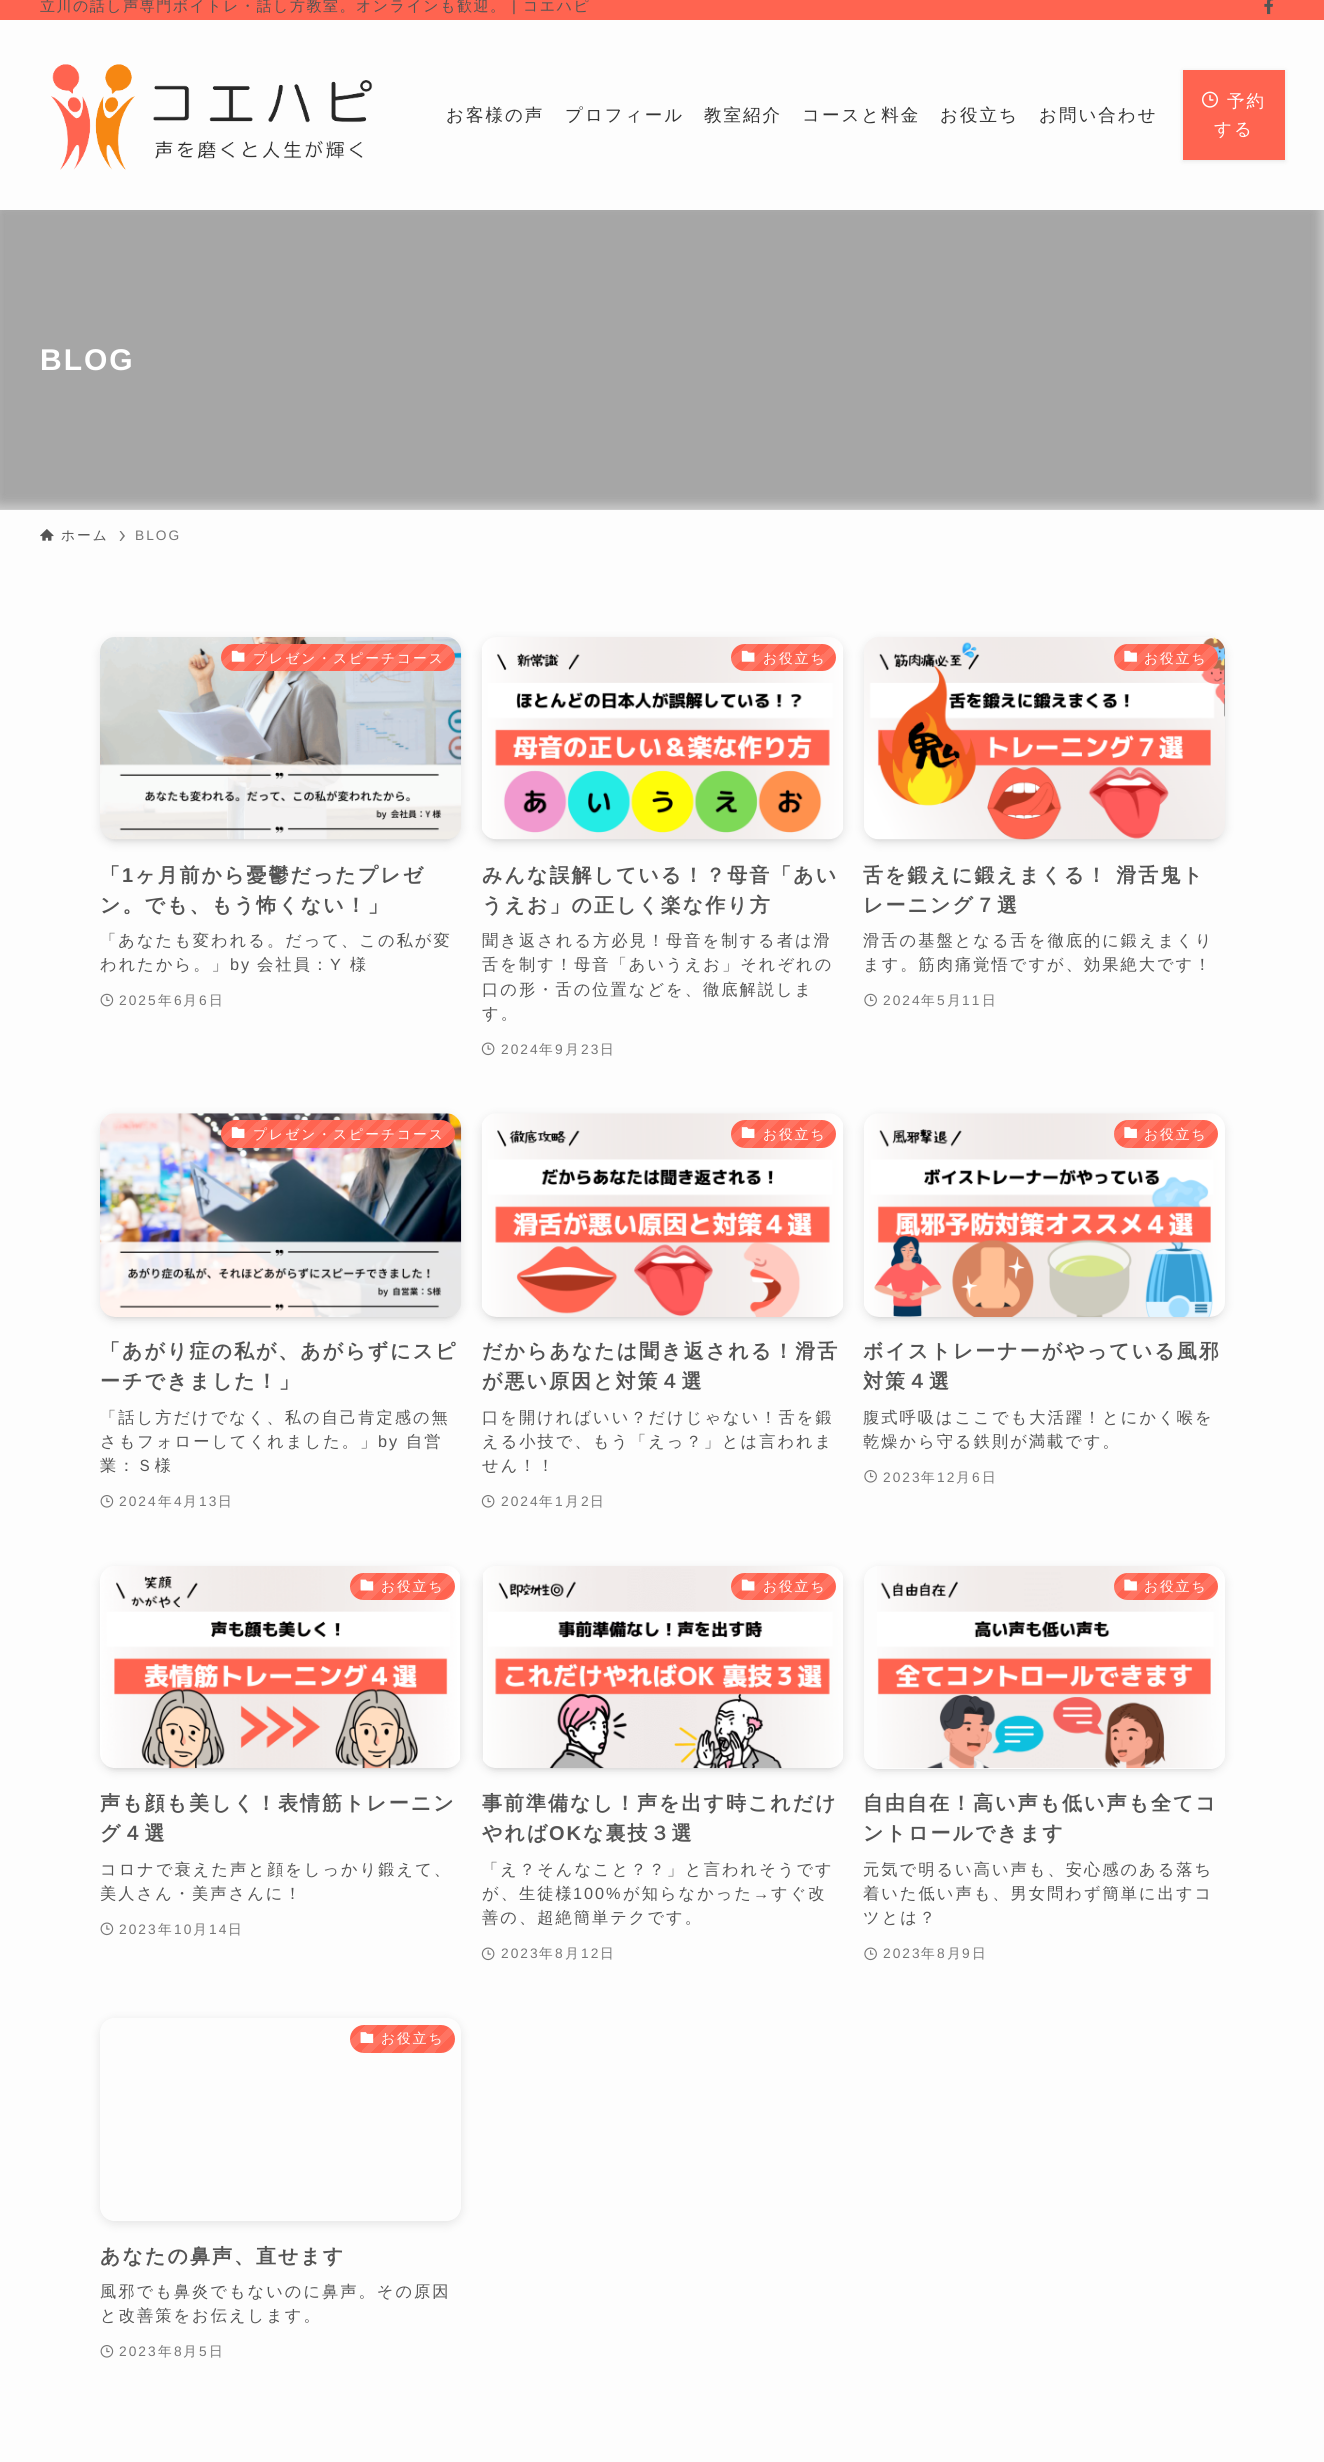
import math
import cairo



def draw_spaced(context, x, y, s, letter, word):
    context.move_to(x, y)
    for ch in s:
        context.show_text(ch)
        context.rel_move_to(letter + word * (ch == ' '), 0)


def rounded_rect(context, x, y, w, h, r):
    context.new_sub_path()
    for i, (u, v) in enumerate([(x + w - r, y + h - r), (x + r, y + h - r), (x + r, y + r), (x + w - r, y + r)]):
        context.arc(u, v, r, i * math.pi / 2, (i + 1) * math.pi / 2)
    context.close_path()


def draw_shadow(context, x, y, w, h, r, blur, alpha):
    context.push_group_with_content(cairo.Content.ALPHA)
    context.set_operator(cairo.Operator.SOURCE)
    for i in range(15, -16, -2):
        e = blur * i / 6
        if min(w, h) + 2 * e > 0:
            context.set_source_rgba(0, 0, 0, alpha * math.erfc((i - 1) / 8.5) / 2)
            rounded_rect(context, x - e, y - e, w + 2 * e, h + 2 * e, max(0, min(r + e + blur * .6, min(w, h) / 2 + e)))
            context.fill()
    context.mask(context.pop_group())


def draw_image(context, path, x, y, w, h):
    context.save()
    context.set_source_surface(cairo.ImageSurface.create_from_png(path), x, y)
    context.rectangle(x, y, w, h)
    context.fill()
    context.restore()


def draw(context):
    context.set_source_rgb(253 / 255, 253 / 255, 253 / 255)
    context.paint()
    context.set_source_rgb(202 / 255, 202 / 255, 202 / 255)
    context.rectangle(0, 210, 1324, 300)
    context.fill()
    context.set_source_rgb(1, 100 / 255, 80 / 255)
    context.rectangle(0, 0, 1324, 20)
    context.fill()
    draw_image(context, "images/1.png", 1264, 0, 10, 15)
    draw_image(context, "images/2.png", 51, 64, 322, 106)
    context.set_source_rgb(0, 0, 0)
    draw_shadow(context, 1183, 71, 102, 90, 0, 2.5, 0.1)
    context.set_source_rgb(1, 100 / 255, 80 / 255)
    context.rectangle(1183, 70, 102, 90)
    context.fill()
    draw_image(context, "images/3.png", 1202, 91, 16, 17)
    draw_image(context, "images/4.png", 0, 210, 1324, 299)
    draw_image(context, "images/5.png", 40, 529, 14, 12)
    context.set_source_rgb(118 / 255, 118 / 255, 118 / 255)
    context.new_path()
    context.move_to(121, 531)
    context.line_to(119.5, 531)
    context.line_to(123, 536)
    context.line_to(119.5, 541)
    context.line_to(121, 541)
    context.line_to(125, 536)
    context.close_path()
    context.fill()
    context.set_source_rgb(0, 0, 0)
    draw_shadow(context, 105, 648, 351, 192, 10, 2.5, 0.1)
    draw_shadow(context, 100, 640, 361, 203, 15, 5, 0.1)
    draw_image(context, "images/6.png", 100, 637, 362, 203)
    context.set_source_rgb(1, 100 / 255, 80 / 255)
    rounded_rect(context, 221, 644, 234, 27, 13.5)
    context.fill()
    gradient = cairo.LinearGradient(403, 723, 266, 585)
    gradient.add_color_stop_rgba(0, 1, 1, 1, 0.1)
    gradient.add_color_stop_rgba(0.04, 1, 1, 1, 0.1)
    gradient.add_color_stop_rgba(0.04, 1, 1, 1, 0)
    gradient.add_color_stop_rgba(0.08, 1, 1, 1, 0)
    gradient.add_color_stop_rgba(0.08, 1, 1, 1, 0.1)
    gradient.add_color_stop_rgba(0.12, 1, 1, 1, 0.1)
    gradient.add_color_stop_rgba(0.12, 1, 1, 1, 0)
    gradient.add_color_stop_rgba(0.15, 1, 1, 1, 0)
    gradient.add_color_stop_rgba(0.15, 1, 1, 1, 0.1)
    gradient.add_color_stop_rgba(0.19, 1, 1, 1, 0.1)
    gradient.add_color_stop_rgba(0.19, 1, 1, 1, 0)
    gradient.add_color_stop_rgba(0.23, 1, 1, 1, 0)
    gradient.add_color_stop_rgba(0.23, 1, 1, 1, 0.1)
    gradient.add_color_stop_rgba(0.27, 1, 1, 1, 0.1)
    gradient.add_color_stop_rgba(0.27, 1, 1, 1, 0)
    gradient.add_color_stop_rgba(0.31, 1, 1, 1, 0)
    gradient.add_color_stop_rgba(0.31, 1, 1, 1, 0.1)
    gradient.add_color_stop_rgba(0.35, 1, 1, 1, 0.1)
    gradient.add_color_stop_rgba(0.35, 1, 1, 1, 0)
    gradient.add_color_stop_rgba(0.38, 1, 1, 1, 0)
    gradient.add_color_stop_rgba(0.38, 1, 1, 1, 0.1)
    gradient.add_color_stop_rgba(0.42, 1, 1, 1, 0.1)
    gradient.add_color_stop_rgba(0.42, 1, 1, 1, 0)
    gradient.add_color_stop_rgba(0.46, 1, 1, 1, 0)
    gradient.add_color_stop_rgba(0.46, 1, 1, 1, 0.1)
    gradient.add_color_stop_rgba(0.5, 1, 1, 1, 0.1)
    gradient.add_color_stop_rgba(0.5, 1, 1, 1, 0)
    gradient.add_color_stop_rgba(0.54, 1, 1, 1, 0)
    gradient.add_color_stop_rgba(0.54, 1, 1, 1, 0.1)
    gradient.add_color_stop_rgba(0.58, 1, 1, 1, 0.1)
    gradient.add_color_stop_rgba(0.58, 1, 1, 1, 0)
    gradient.add_color_stop_rgba(0.62, 1, 1, 1, 0)
    gradient.add_color_stop_rgba(0.62, 1, 1, 1, 0.1)
    gradient.add_color_stop_rgba(0.65, 1, 1, 1, 0.1)
    gradient.add_color_stop_rgba(0.65, 1, 1, 1, 0)
    gradient.add_color_stop_rgba(0.69, 1, 1, 1, 0)
    gradient.add_color_stop_rgba(0.69, 1, 1, 1, 0.1)
    gradient.add_color_stop_rgba(0.73, 1, 1, 1, 0.1)
    gradient.add_color_stop_rgba(0.73, 1, 1, 1, 0)
    gradient.add_color_stop_rgba(0.77, 1, 1, 1, 0)
    gradient.add_color_stop_rgba(0.77, 1, 1, 1, 0.1)
    gradient.add_color_stop_rgba(0.81, 1, 1, 1, 0.1)
    gradient.add_color_stop_rgba(0.81, 1, 1, 1, 0)
    gradient.add_color_stop_rgba(0.85, 1, 1, 1, 0)
    gradient.add_color_stop_rgba(0.85, 1, 1, 1, 0.1)
    gradient.add_color_stop_rgba(0.88, 1, 1, 1, 0.1)
    gradient.add_color_stop_rgba(0.88, 1, 1, 1, 0)
    gradient.add_color_stop_rgba(0.92, 1, 1, 1, 0)
    gradient.add_color_stop_rgba(0.92, 1, 1, 1, 0.1)
    gradient.add_color_stop_rgba(0.96, 1, 1, 1, 0.1)
    gradient.add_color_stop_rgba(0.96, 1, 1, 1, 0)
    gradient.add_color_stop_rgba(1, 0, 0, 0, 0)
    context.set_source(gradient)
    rounded_rect(context, 221, 644, 234, 27, 13.5)
    context.fill()
    draw_image(context, "images/7.png", 231, 650, 14, 12)
    draw_image(context, "images/8.png", 100, 993, 14, 14)
    context.set_source_rgb(0, 0, 0)
    draw_shadow(context, 486, 648, 353, 192, 10, 2.5, 0.1)
    draw_shadow(context, 481, 640, 363, 203, 15, 5, 0.1)
    draw_image(context, "images/9.png", 482, 637, 361, 203)
    context.set_source_rgb(1, 100 / 255, 80 / 255)
    rounded_rect(context, 731, 644, 105, 27, 13.5)
    context.fill()
    gradient = cairo.LinearGradient(817, 691, 743, 616)
    gradient.add_color_stop_rgba(0, 1, 1, 1, 0.1)
    gradient.add_color_stop_rgba(0.07, 1, 1, 1, 0.1)
    gradient.add_color_stop_rgba(0.07, 1, 1, 1, 0)
    gradient.add_color_stop_rgba(0.14, 1, 1, 1, 0)
    gradient.add_color_stop_rgba(0.14, 1, 1, 1, 0.1)
    gradient.add_color_stop_rgba(0.21, 1, 1, 1, 0.1)
    gradient.add_color_stop_rgba(0.21, 1, 1, 1, 0)
    gradient.add_color_stop_rgba(0.29, 1, 1, 1, 0)
    gradient.add_color_stop_rgba(0.29, 1, 1, 1, 0.1)
    gradient.add_color_stop_rgba(0.36, 1, 1, 1, 0.1)
    gradient.add_color_stop_rgba(0.36, 1, 1, 1, 0)
    gradient.add_color_stop_rgba(0.43, 1, 1, 1, 0)
    gradient.add_color_stop_rgba(0.43, 1, 1, 1, 0.1)
    gradient.add_color_stop_rgba(0.5, 1, 1, 1, 0.1)
    gradient.add_color_stop_rgba(0.5, 1, 1, 1, 0)
    gradient.add_color_stop_rgba(0.57, 1, 1, 1, 0)
    gradient.add_color_stop_rgba(0.57, 1, 1, 1, 0.1)
    gradient.add_color_stop_rgba(0.64, 1, 1, 1, 0.1)
    gradient.add_color_stop_rgba(0.64, 1, 1, 1, 0)
    gradient.add_color_stop_rgba(0.71, 1, 1, 1, 0)
    gradient.add_color_stop_rgba(0.71, 1, 1, 1, 0.1)
    gradient.add_color_stop_rgba(0.79, 1, 1, 1, 0.1)
    gradient.add_color_stop_rgba(0.79, 1, 1, 1, 0)
    gradient.add_color_stop_rgba(0.86, 1, 1, 1, 0)
    gradient.add_color_stop_rgba(0.86, 1, 1, 1, 0.1)
    gradient.add_color_stop_rgba(0.93, 1, 1, 1, 0.1)
    gradient.add_color_stop_rgba(0.93, 1, 1, 1, 0)
    gradient.add_color_stop_rgba(1, 0, 0, 0, 0)
    context.set_source(gradient)
    rounded_rect(context, 731, 644, 105, 27, 13.5)
    context.fill()
    draw_image(context, "images/10.png", 741, 650, 14, 12)
    draw_image(context, "images/11.png", 481, 1042, 14, 14)
    context.set_source_rgb(0, 0, 0)
    draw_shadow(context, 869, 648, 351, 192, 10, 2.5, 0.1)
    draw_shadow(context, 864, 640, 361, 203, 15, 5, 0.1)
    draw_image(context, "images/12.png", 864, 637, 361, 203)
    context.set_source_rgb(1, 100 / 255, 80 / 255)
    rounded_rect(context, 1114, 644, 104, 27, 13.5)
    context.fill()
    gradient = cairo.LinearGradient(1198, 690, 1124, 616)
    gradient.add_color_stop_rgba(0, 1, 1, 1, 0.1)
    gradient.add_color_stop_rgba(0.07, 1, 1, 1, 0.1)
    gradient.add_color_stop_rgba(0.07, 1, 1, 1, 0)
    gradient.add_color_stop_rgba(0.14, 1, 1, 1, 0)
    gradient.add_color_stop_rgba(0.14, 1, 1, 1, 0.1)
    gradient.add_color_stop_rgba(0.21, 1, 1, 1, 0.1)
    gradient.add_color_stop_rgba(0.21, 1, 1, 1, 0)
    gradient.add_color_stop_rgba(0.29, 1, 1, 1, 0)
    gradient.add_color_stop_rgba(0.29, 1, 1, 1, 0.1)
    gradient.add_color_stop_rgba(0.36, 1, 1, 1, 0.1)
    gradient.add_color_stop_rgba(0.36, 1, 1, 1, 0)
    gradient.add_color_stop_rgba(0.43, 1, 1, 1, 0)
    gradient.add_color_stop_rgba(0.43, 1, 1, 1, 0.1)
    gradient.add_color_stop_rgba(0.5, 1, 1, 1, 0.1)
    gradient.add_color_stop_rgba(0.5, 1, 1, 1, 0)
    gradient.add_color_stop_rgba(0.57, 1, 1, 1, 0)
    gradient.add_color_stop_rgba(0.57, 1, 1, 1, 0.1)
    gradient.add_color_stop_rgba(0.64, 1, 1, 1, 0.1)
    gradient.add_color_stop_rgba(0.64, 1, 1, 1, 0)
    gradient.add_color_stop_rgba(0.71, 1, 1, 1, 0)
    gradient.add_color_stop_rgba(0.71, 1, 1, 1, 0.1)
    gradient.add_color_stop_rgba(0.79, 1, 1, 1, 0.1)
    gradient.add_color_stop_rgba(0.79, 1, 1, 1, 0)
    gradient.add_color_stop_rgba(0.86, 1, 1, 1, 0)
    gradient.add_color_stop_rgba(0.86, 1, 1, 1, 0.1)
    gradient.add_color_stop_rgba(0.93, 1, 1, 1, 0.1)
    gradient.add_color_stop_rgba(0.93, 1, 1, 1, 0)
    gradient.add_color_stop_rgba(1, 0, 0, 0, 0)
    context.set_source(gradient)
    rounded_rect(context, 1114, 644, 104, 27, 13.5)
    context.fill()
    draw_image(context, "images/13.png", 1124, 650, 13, 12)
    draw_image(context, "images/14.png", 864, 993, 13, 14)
    context.set_source_rgb(0, 0, 0)
    draw_shadow(context, 105, 1124, 351, 194, 10, 2.5, 0.1)
    draw_shadow(context, 100, 1116, 361, 204, 15, 5, 0.1)
    draw_image(context, "images/15.png", 100, 1113, 362, 204)
    context.set_source_rgb(1, 100 / 255, 80 / 255)
    rounded_rect(context, 221, 1120, 234, 28, 14)
    context.fill()
    gradient = cairo.LinearGradient(403, 1199, 266, 1061)
    gradient.add_color_stop_rgba(0, 1, 1, 1, 0.1)
    gradient.add_color_stop_rgba(0.04, 1, 1, 1, 0.1)
    gradient.add_color_stop_rgba(0.04, 1, 1, 1, 0)
    gradient.add_color_stop_rgba(0.08, 1, 1, 1, 0)
    gradient.add_color_stop_rgba(0.08, 1, 1, 1, 0.1)
    gradient.add_color_stop_rgba(0.12, 1, 1, 1, 0.1)
    gradient.add_color_stop_rgba(0.12, 1, 1, 1, 0)
    gradient.add_color_stop_rgba(0.15, 1, 1, 1, 0)
    gradient.add_color_stop_rgba(0.15, 1, 1, 1, 0.1)
    gradient.add_color_stop_rgba(0.19, 1, 1, 1, 0.1)
    gradient.add_color_stop_rgba(0.19, 1, 1, 1, 0)
    gradient.add_color_stop_rgba(0.23, 1, 1, 1, 0)
    gradient.add_color_stop_rgba(0.23, 1, 1, 1, 0.1)
    gradient.add_color_stop_rgba(0.27, 1, 1, 1, 0.1)
    gradient.add_color_stop_rgba(0.27, 1, 1, 1, 0)
    gradient.add_color_stop_rgba(0.31, 1, 1, 1, 0)
    gradient.add_color_stop_rgba(0.31, 1, 1, 1, 0.1)
    gradient.add_color_stop_rgba(0.35, 1, 1, 1, 0.1)
    gradient.add_color_stop_rgba(0.35, 1, 1, 1, 0)
    gradient.add_color_stop_rgba(0.38, 1, 1, 1, 0)
    gradient.add_color_stop_rgba(0.38, 1, 1, 1, 0.1)
    gradient.add_color_stop_rgba(0.42, 1, 1, 1, 0.1)
    gradient.add_color_stop_rgba(0.42, 1, 1, 1, 0)
    gradient.add_color_stop_rgba(0.46, 1, 1, 1, 0)
    gradient.add_color_stop_rgba(0.46, 1, 1, 1, 0.1)
    gradient.add_color_stop_rgba(0.5, 1, 1, 1, 0.1)
    gradient.add_color_stop_rgba(0.5, 1, 1, 1, 0)
    gradient.add_color_stop_rgba(0.54, 1, 1, 1, 0)
    gradient.add_color_stop_rgba(0.54, 1, 1, 1, 0.1)
    gradient.add_color_stop_rgba(0.58, 1, 1, 1, 0.1)
    gradient.add_color_stop_rgba(0.58, 1, 1, 1, 0)
    gradient.add_color_stop_rgba(0.62, 1, 1, 1, 0)
    gradient.add_color_stop_rgba(0.62, 1, 1, 1, 0.1)
    gradient.add_color_stop_rgba(0.65, 1, 1, 1, 0.1)
    gradient.add_color_stop_rgba(0.65, 1, 1, 1, 0)
    gradient.add_color_stop_rgba(0.69, 1, 1, 1, 0)
    gradient.add_color_stop_rgba(0.69, 1, 1, 1, 0.1)
    gradient.add_color_stop_rgba(0.73, 1, 1, 1, 0.1)
    gradient.add_color_stop_rgba(0.73, 1, 1, 1, 0)
    gradient.add_color_stop_rgba(0.77, 1, 1, 1, 0)
    gradient.add_color_stop_rgba(0.77, 1, 1, 1, 0.1)
    gradient.add_color_stop_rgba(0.81, 1, 1, 1, 0.1)
    gradient.add_color_stop_rgba(0.81, 1, 1, 1, 0)
    gradient.add_color_stop_rgba(0.85, 1, 1, 1, 0)
    gradient.add_color_stop_rgba(0.85, 1, 1, 1, 0.1)
    gradient.add_color_stop_rgba(0.88, 1, 1, 1, 0.1)
    gradient.add_color_stop_rgba(0.88, 1, 1, 1, 0)
    gradient.add_color_stop_rgba(0.92, 1, 1, 1, 0)
    gradient.add_color_stop_rgba(0.92, 1, 1, 1, 0.1)
    gradient.add_color_stop_rgba(0.96, 1, 1, 1, 0.1)
    gradient.add_color_stop_rgba(0.96, 1, 1, 1, 0)
    gradient.add_color_stop_rgba(1, 0, 0, 0, 0)
    context.set_source(gradient)
    rounded_rect(context, 221, 1120, 234, 28, 14)
    context.fill()
    draw_image(context, "images/16.png", 231, 1127, 14, 11)
    draw_image(context, "images/17.png", 100, 1495, 14, 13)
    context.set_source_rgb(0, 0, 0)
    draw_shadow(context, 486, 1124, 353, 194, 10, 2.5, 0.1)
    draw_shadow(context, 481, 1116, 363, 204, 15, 5, 0.1)
    draw_image(context, "images/18.png", 482, 1113, 361, 204)
    context.set_source_rgb(1, 100 / 255, 80 / 255)
    rounded_rect(context, 731, 1120, 105, 28, 14)
    context.fill()
    gradient = cairo.LinearGradient(817, 1167, 743, 1093)
    gradient.add_color_stop_rgba(0, 1, 1, 1, 0.1)
    gradient.add_color_stop_rgba(0.07, 1, 1, 1, 0.1)
    gradient.add_color_stop_rgba(0.07, 1, 1, 1, 0)
    gradient.add_color_stop_rgba(0.14, 1, 1, 1, 0)
    gradient.add_color_stop_rgba(0.14, 1, 1, 1, 0.1)
    gradient.add_color_stop_rgba(0.21, 1, 1, 1, 0.1)
    gradient.add_color_stop_rgba(0.21, 1, 1, 1, 0)
    gradient.add_color_stop_rgba(0.29, 1, 1, 1, 0)
    gradient.add_color_stop_rgba(0.29, 1, 1, 1, 0.1)
    gradient.add_color_stop_rgba(0.36, 1, 1, 1, 0.1)
    gradient.add_color_stop_rgba(0.36, 1, 1, 1, 0)
    gradient.add_color_stop_rgba(0.43, 1, 1, 1, 0)
    gradient.add_color_stop_rgba(0.43, 1, 1, 1, 0.1)
    gradient.add_color_stop_rgba(0.5, 1, 1, 1, 0.1)
    gradient.add_color_stop_rgba(0.5, 1, 1, 1, 0)
    gradient.add_color_stop_rgba(0.57, 1, 1, 1, 0)
    gradient.add_color_stop_rgba(0.57, 1, 1, 1, 0.1)
    gradient.add_color_stop_rgba(0.64, 1, 1, 1, 0.1)
    gradient.add_color_stop_rgba(0.64, 1, 1, 1, 0)
    gradient.add_color_stop_rgba(0.71, 1, 1, 1, 0)
    gradient.add_color_stop_rgba(0.71, 1, 1, 1, 0.1)
    gradient.add_color_stop_rgba(0.79, 1, 1, 1, 0.1)
    gradient.add_color_stop_rgba(0.79, 1, 1, 1, 0)
    gradient.add_color_stop_rgba(0.86, 1, 1, 1, 0)
    gradient.add_color_stop_rgba(0.86, 1, 1, 1, 0.1)
    gradient.add_color_stop_rgba(0.93, 1, 1, 1, 0.1)
    gradient.add_color_stop_rgba(0.93, 1, 1, 1, 0)
    gradient.add_color_stop_rgba(1, 0, 0, 0, 0)
    context.set_source(gradient)
    rounded_rect(context, 731, 1120, 105, 28, 14)
    context.fill()
    draw_image(context, "images/19.png", 741, 1127, 14, 11)
    draw_image(context, "images/20.png", 481, 1495, 14, 13)
    context.set_source_rgb(0, 0, 0)
    draw_shadow(context, 869, 1124, 351, 194, 10, 2.5, 0.1)
    draw_shadow(context, 864, 1116, 361, 204, 15, 5, 0.1)
    draw_image(context, "images/21.png", 864, 1113, 361, 204)
    context.set_source_rgb(1, 100 / 255, 80 / 255)
    rounded_rect(context, 1114, 1120, 104, 28, 14)
    context.fill()
    gradient = cairo.LinearGradient(1198, 1167, 1124, 1092)
    gradient.add_color_stop_rgba(0, 1, 1, 1, 0.1)
    gradient.add_color_stop_rgba(0.07, 1, 1, 1, 0.1)
    gradient.add_color_stop_rgba(0.07, 1, 1, 1, 0)
    gradient.add_color_stop_rgba(0.14, 1, 1, 1, 0)
    gradient.add_color_stop_rgba(0.14, 1, 1, 1, 0.1)
    gradient.add_color_stop_rgba(0.21, 1, 1, 1, 0.1)
    gradient.add_color_stop_rgba(0.21, 1, 1, 1, 0)
    gradient.add_color_stop_rgba(0.29, 1, 1, 1, 0)
    gradient.add_color_stop_rgba(0.29, 1, 1, 1, 0.1)
    gradient.add_color_stop_rgba(0.36, 1, 1, 1, 0.1)
    gradient.add_color_stop_rgba(0.36, 1, 1, 1, 0)
    gradient.add_color_stop_rgba(0.43, 1, 1, 1, 0)
    gradient.add_color_stop_rgba(0.43, 1, 1, 1, 0.1)
    gradient.add_color_stop_rgba(0.5, 1, 1, 1, 0.1)
    gradient.add_color_stop_rgba(0.5, 1, 1, 1, 0)
    gradient.add_color_stop_rgba(0.57, 1, 1, 1, 0)
    gradient.add_color_stop_rgba(0.57, 1, 1, 1, 0.1)
    gradient.add_color_stop_rgba(0.64, 1, 1, 1, 0.1)
    gradient.add_color_stop_rgba(0.64, 1, 1, 1, 0)
    gradient.add_color_stop_rgba(0.71, 1, 1, 1, 0)
    gradient.add_color_stop_rgba(0.71, 1, 1, 1, 0.1)
    gradient.add_color_stop_rgba(0.79, 1, 1, 1, 0.1)
    gradient.add_color_stop_rgba(0.79, 1, 1, 1, 0)
    gradient.add_color_stop_rgba(0.86, 1, 1, 1, 0)
    gradient.add_color_stop_rgba(0.86, 1, 1, 1, 0.1)
    gradient.add_color_stop_rgba(0.93, 1, 1, 1, 0.1)
    gradient.add_color_stop_rgba(0.93, 1, 1, 1, 0)
    gradient.add_color_stop_rgba(1, 0, 0, 0, 0)
    context.set_source(gradient)
    rounded_rect(context, 1114, 1120, 104, 28, 14)
    context.fill()
    draw_image(context, "images/22.png", 1124, 1127, 13, 11)
    draw_image(context, "images/23.png", 864, 1470, 13, 13)
    context.set_source_rgb(0, 0, 0)
    draw_shadow(context, 105, 1576, 351, 193, 10, 2.5, 0.1)
    draw_shadow(context, 100, 1569, 361, 202, 15, 5, 0.1)
    draw_image(context, "images/24.png", 100, 1566, 360, 203)
    context.set_source_rgb(1, 100 / 255, 80 / 255)
    rounded_rect(context, 350, 1573, 105, 27, 13.5)
    context.fill()
    gradient = cairo.LinearGradient(436, 1619, 361, 1545)
    gradient.add_color_stop_rgba(0, 1, 1, 1, 0.1)
    gradient.add_color_stop_rgba(0.07, 1, 1, 1, 0.1)
    gradient.add_color_stop_rgba(0.07, 1, 1, 1, 0)
    gradient.add_color_stop_rgba(0.14, 1, 1, 1, 0)
    gradient.add_color_stop_rgba(0.14, 1, 1, 1, 0.1)
    gradient.add_color_stop_rgba(0.21, 1, 1, 1, 0.1)
    gradient.add_color_stop_rgba(0.21, 1, 1, 1, 0)
    gradient.add_color_stop_rgba(0.29, 1, 1, 1, 0)
    gradient.add_color_stop_rgba(0.29, 1, 1, 1, 0.1)
    gradient.add_color_stop_rgba(0.36, 1, 1, 1, 0.1)
    gradient.add_color_stop_rgba(0.36, 1, 1, 1, 0)
    gradient.add_color_stop_rgba(0.43, 1, 1, 1, 0)
    gradient.add_color_stop_rgba(0.43, 1, 1, 1, 0.1)
    gradient.add_color_stop_rgba(0.5, 1, 1, 1, 0.1)
    gradient.add_color_stop_rgba(0.5, 1, 1, 1, 0)
    gradient.add_color_stop_rgba(0.57, 1, 1, 1, 0)
    gradient.add_color_stop_rgba(0.57, 1, 1, 1, 0.1)
    gradient.add_color_stop_rgba(0.64, 1, 1, 1, 0.1)
    gradient.add_color_stop_rgba(0.64, 1, 1, 1, 0)
    gradient.add_color_stop_rgba(0.71, 1, 1, 1, 0)
    gradient.add_color_stop_rgba(0.71, 1, 1, 1, 0.1)
    gradient.add_color_stop_rgba(0.79, 1, 1, 1, 0.1)
    gradient.add_color_stop_rgba(0.79, 1, 1, 1, 0)
    gradient.add_color_stop_rgba(0.86, 1, 1, 1, 0)
    gradient.add_color_stop_rgba(0.86, 1, 1, 1, 0.1)
    gradient.add_color_stop_rgba(0.93, 1, 1, 1, 0.1)
    gradient.add_color_stop_rgba(0.93, 1, 1, 1, 0)
    gradient.add_color_stop_rgba(1, 0, 0, 0, 0)
    context.set_source(gradient)
    rounded_rect(context, 350, 1573, 105, 27, 13.5)
    context.fill()
    draw_image(context, "images/25.png", 360, 1579, 14, 12)
    draw_image(context, "images/26.png", 100, 1922, 14, 14)
    context.set_source_rgb(0, 0, 0)
    draw_shadow(context, 486, 1576, 353, 193, 10, 2.5, 0.1)
    draw_shadow(context, 481, 1569, 363, 202, 15, 5, 0.1)
    draw_image(context, "images/27.png", 483, 1566, 360, 203)
    context.set_source_rgb(1, 100 / 255, 80 / 255)
    rounded_rect(context, 731, 1573, 105, 27, 13.5)
    context.fill()
    gradient = cairo.LinearGradient(817, 1619, 743, 1545)
    gradient.add_color_stop_rgba(0, 1, 1, 1, 0.1)
    gradient.add_color_stop_rgba(0.07, 1, 1, 1, 0.1)
    gradient.add_color_stop_rgba(0.07, 1, 1, 1, 0)
    gradient.add_color_stop_rgba(0.14, 1, 1, 1, 0)
    gradient.add_color_stop_rgba(0.14, 1, 1, 1, 0.1)
    gradient.add_color_stop_rgba(0.21, 1, 1, 1, 0.1)
    gradient.add_color_stop_rgba(0.21, 1, 1, 1, 0)
    gradient.add_color_stop_rgba(0.29, 1, 1, 1, 0)
    gradient.add_color_stop_rgba(0.29, 1, 1, 1, 0.1)
    gradient.add_color_stop_rgba(0.36, 1, 1, 1, 0.1)
    gradient.add_color_stop_rgba(0.36, 1, 1, 1, 0)
    gradient.add_color_stop_rgba(0.43, 1, 1, 1, 0)
    gradient.add_color_stop_rgba(0.43, 1, 1, 1, 0.1)
    gradient.add_color_stop_rgba(0.5, 1, 1, 1, 0.1)
    gradient.add_color_stop_rgba(0.5, 1, 1, 1, 0)
    gradient.add_color_stop_rgba(0.57, 1, 1, 1, 0)
    gradient.add_color_stop_rgba(0.57, 1, 1, 1, 0.1)
    gradient.add_color_stop_rgba(0.64, 1, 1, 1, 0.1)
    gradient.add_color_stop_rgba(0.64, 1, 1, 1, 0)
    gradient.add_color_stop_rgba(0.71, 1, 1, 1, 0)
    gradient.add_color_stop_rgba(0.71, 1, 1, 1, 0.1)
    gradient.add_color_stop_rgba(0.79, 1, 1, 1, 0.1)
    gradient.add_color_stop_rgba(0.79, 1, 1, 1, 0)
    gradient.add_color_stop_rgba(0.86, 1, 1, 1, 0)
    gradient.add_color_stop_rgba(0.86, 1, 1, 1, 0.1)
    gradient.add_color_stop_rgba(0.93, 1, 1, 1, 0.1)
    gradient.add_color_stop_rgba(0.93, 1, 1, 1, 0)
    gradient.add_color_stop_rgba(1, 0, 0, 0, 0)
    context.set_source(gradient)
    rounded_rect(context, 731, 1573, 105, 27, 13.5)
    context.fill()
    draw_image(context, "images/28.png", 741, 1579, 14, 12)
    draw_image(context, "images/11.png", 481, 1947, 14, 14)
    context.save()
    context.set_fill_rule(cairo.FillRule.EVEN_ODD)
    context.new_path()
    context.move_to(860, 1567)
    context.line_to(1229, 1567)
    context.line_to(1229, 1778)
    context.line_to(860, 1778)
    context.close_path()
    context.move_to(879, 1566)
    context.line_to(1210, 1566)
    context.curve_to(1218.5, 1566, 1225, 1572.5, 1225, 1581)
    context.line_to(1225, 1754)
    context.curve_to(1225, 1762.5, 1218.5, 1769, 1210, 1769)
    context.line_to(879, 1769)
    context.curve_to(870.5, 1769, 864, 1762.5, 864, 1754)
    context.line_to(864, 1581)
    context.curve_to(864, 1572.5, 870.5, 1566, 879, 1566)
    context.close_path()
    context.clip()
    context.set_source_rgb(0, 0, 0)
    draw_shadow(context, 869, 1576, 351, 193, 10, 2.5, 0.1)
    context.restore()
    context.save()
    context.set_fill_rule(cairo.FillRule.EVEN_ODD)
    context.new_path()
    context.move_to(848, 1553)
    context.line_to(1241, 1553)
    context.line_to(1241, 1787)
    context.line_to(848, 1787)
    context.close_path()
    context.move_to(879, 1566)
    context.line_to(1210, 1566)
    context.curve_to(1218.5, 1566, 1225, 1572.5, 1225, 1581)
    context.line_to(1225, 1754)
    context.curve_to(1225, 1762.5, 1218.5, 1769, 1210, 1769)
    context.line_to(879, 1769)
    context.curve_to(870.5, 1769, 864, 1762.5, 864, 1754)
    context.line_to(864, 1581)
    context.curve_to(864, 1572.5, 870.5, 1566, 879, 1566)
    context.close_path()
    context.clip()
    context.set_source_rgb(0, 0, 0)
    draw_shadow(context, 864, 1569, 361, 202, 15, 5, 0.1)
    context.restore()
    draw_image(context, "images/29.png", 877, 1566, 348, 203)
    context.set_source_rgb(1, 100 / 255, 80 / 255)
    rounded_rect(context, 1114, 1573, 104, 27, 13.5)
    context.fill()
    gradient = cairo.LinearGradient(1198, 1619, 1124, 1545)
    gradient.add_color_stop_rgba(0, 1, 1, 1, 0.1)
    gradient.add_color_stop_rgba(0.07, 1, 1, 1, 0.1)
    gradient.add_color_stop_rgba(0.07, 1, 1, 1, 0)
    gradient.add_color_stop_rgba(0.14, 1, 1, 1, 0)
    gradient.add_color_stop_rgba(0.14, 1, 1, 1, 0.1)
    gradient.add_color_stop_rgba(0.21, 1, 1, 1, 0.1)
    gradient.add_color_stop_rgba(0.21, 1, 1, 1, 0)
    gradient.add_color_stop_rgba(0.29, 1, 1, 1, 0)
    gradient.add_color_stop_rgba(0.29, 1, 1, 1, 0.1)
    gradient.add_color_stop_rgba(0.36, 1, 1, 1, 0.1)
    gradient.add_color_stop_rgba(0.36, 1, 1, 1, 0)
    gradient.add_color_stop_rgba(0.43, 1, 1, 1, 0)
    gradient.add_color_stop_rgba(0.43, 1, 1, 1, 0.1)
    gradient.add_color_stop_rgba(0.5, 1, 1, 1, 0.1)
    gradient.add_color_stop_rgba(0.5, 1, 1, 1, 0)
    gradient.add_color_stop_rgba(0.57, 1, 1, 1, 0)
    gradient.add_color_stop_rgba(0.57, 1, 1, 1, 0.1)
    gradient.add_color_stop_rgba(0.64, 1, 1, 1, 0.1)
    gradient.add_color_stop_rgba(0.64, 1, 1, 1, 0)
    gradient.add_color_stop_rgba(0.71, 1, 1, 1, 0)
    gradient.add_color_stop_rgba(0.71, 1, 1, 1, 0.1)
    gradient.add_color_stop_rgba(0.79, 1, 1, 1, 0.1)
    gradient.add_color_stop_rgba(0.79, 1, 1, 1, 0)
    gradient.add_color_stop_rgba(0.86, 1, 1, 1, 0)
    gradient.add_color_stop_rgba(0.86, 1, 1, 1, 0.1)
    gradient.add_color_stop_rgba(0.93, 1, 1, 1, 0.1)
    gradient.add_color_stop_rgba(0.93, 1, 1, 1, 0)
    gradient.add_color_stop_rgba(1, 0, 0, 0, 0)
    context.set_source(gradient)
    rounded_rect(context, 1114, 1573, 104, 27, 13.5)
    context.fill()
    draw_image(context, "images/30.png", 1124, 1579, 13, 12)
    draw_image(context, "images/31.png", 864, 1947, 13, 14)
    context.save()
    context.set_fill_rule(cairo.FillRule.EVEN_ODD)
    context.new_path()
    context.move_to(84, 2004)
    context.line_to(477, 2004)
    context.line_to(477, 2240)
    context.line_to(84, 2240)
    context.close_path()
    context.move_to(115, 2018)
    context.line_to(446, 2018)
    context.curve_to(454.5, 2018, 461, 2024.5, 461, 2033)
    context.line_to(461, 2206)
    context.curve_to(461, 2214.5, 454.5, 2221, 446, 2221)
    context.line_to(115, 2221)
    context.curve_to(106.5, 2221, 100, 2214.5, 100, 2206)
    context.line_to(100, 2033)
    context.curve_to(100, 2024.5, 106.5, 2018, 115, 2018)
    context.close_path()
    context.clip()
    context.set_source_rgb(0, 0, 0)
    draw_shadow(context, 100, 2020, 361, 204, 15, 5, 0.1)
    context.restore()
    context.set_source_rgb(1, 100 / 255, 80 / 255)
    rounded_rect(context, 350, 2025, 105, 28, 14)
    context.fill()
    gradient = cairo.LinearGradient(436, 2072, 361, 1998)
    gradient.add_color_stop_rgba(0, 1, 1, 1, 0.1)
    gradient.add_color_stop_rgba(0.07, 1, 1, 1, 0.1)
    gradient.add_color_stop_rgba(0.07, 1, 1, 1, 0)
    gradient.add_color_stop_rgba(0.14, 1, 1, 1, 0)
    gradient.add_color_stop_rgba(0.14, 1, 1, 1, 0.1)
    gradient.add_color_stop_rgba(0.21, 1, 1, 1, 0.1)
    gradient.add_color_stop_rgba(0.21, 1, 1, 1, 0)
    gradient.add_color_stop_rgba(0.29, 1, 1, 1, 0)
    gradient.add_color_stop_rgba(0.29, 1, 1, 1, 0.1)
    gradient.add_color_stop_rgba(0.36, 1, 1, 1, 0.1)
    gradient.add_color_stop_rgba(0.36, 1, 1, 1, 0)
    gradient.add_color_stop_rgba(0.43, 1, 1, 1, 0)
    gradient.add_color_stop_rgba(0.43, 1, 1, 1, 0.1)
    gradient.add_color_stop_rgba(0.5, 1, 1, 1, 0.1)
    gradient.add_color_stop_rgba(0.5, 1, 1, 1, 0)
    gradient.add_color_stop_rgba(0.57, 1, 1, 1, 0)
    gradient.add_color_stop_rgba(0.57, 1, 1, 1, 0.1)
    gradient.add_color_stop_rgba(0.64, 1, 1, 1, 0.1)
    gradient.add_color_stop_rgba(0.64, 1, 1, 1, 0)
    gradient.add_color_stop_rgba(0.71, 1, 1, 1, 0)
    gradient.add_color_stop_rgba(0.71, 1, 1, 1, 0.1)
    gradient.add_color_stop_rgba(0.79, 1, 1, 1, 0.1)
    gradient.add_color_stop_rgba(0.79, 1, 1, 1, 0)
    gradient.add_color_stop_rgba(0.86, 1, 1, 1, 0)
    gradient.add_color_stop_rgba(0.86, 1, 1, 1, 0.1)
    gradient.add_color_stop_rgba(0.93, 1, 1, 1, 0.1)
    gradient.add_color_stop_rgba(0.93, 1, 1, 1, 0)
    gradient.add_color_stop_rgba(1, 0, 0, 0, 0)
    context.set_source(gradient)
    rounded_rect(context, 350, 2025, 105, 28, 14)
    context.fill()
    draw_image(context, "images/32.png", 360, 2032, 14, 11)
    draw_image(context, "images/17.png", 100, 2345, 14, 13)
    context.select_font_face("WenQuanYi Zen Hei Medium")
    context.set_font_size(15)
    context.set_source_rgb(84 / 255, 84 / 255, 84 / 255)
    draw_spaced(context, 40, 11, "立川の話し声専門ボイトレ・話し方教室。オンラインも歓迎。", 1.5, 0)
    context.select_font_face("Liberation Sans")
    draw_spaced(context, 512, 11, "|", 1.5, 0)
    context.select_font_face("WenQuanYi Zen Hei Medium")
    draw_spaced(context, 523, 11, "コエハピ", 1.5, 0)
    context.set_font_size(17.5)
    context.set_source_rgb(51 / 255, 51 / 255, 51 / 255)
    draw_spaced(context, 446, 121, "お客様の声", 2, 0)
    draw_spaced(context, 565, 121, "プロフィール", 2, 0)
    draw_spaced(context, 704, 121, "教室紹介", 2, 0)
    draw_spaced(context, 802, 121, "コースと料金", 2, 0)
    draw_spaced(context, 940, 121, "お役立ち", 2, 0)
    draw_spaced(context, 1039, 121, "お問い合わせ", 2, 0)
    context.set_source_rgb(1, 1, 1)
    draw_spaced(context, 1227, 107, "予約", 2, 0)
    draw_spaced(context, 1214, 135, "する", 2, 0)
    context.select_font_face("Liberation Sans", cairo.FontSlant.NORMAL, cairo.FontWeight.BOLD)
    context.set_font_size(30)
    draw_spaced(context, 40, 370, "BLOG", 2, 0)
    context.select_font_face("WenQuanYi Zen Hei Medium")
    context.set_font_size(13.75)
    context.set_source_rgb(84 / 255, 84 / 255, 84 / 255)
    draw_spaced(context, 61, 540, "ホーム", 2, 0)
    context.select_font_face("Liberation Sans")
    context.set_source_rgb(118 / 255, 118 / 255, 118 / 255)
    draw_spaced(context, 135, 540, "BLOG", 2, 0)
    context.select_font_face("WenQuanYi Zen Hei Medium")
    context.set_source_rgb(1, 1, 1)
    draw_spaced(context, 253, 663, "プレゼン・スピーチコース", 2, 0)
    context.select_font_face("WenQuanYi Zen Hei", cairo.FontSlant.NORMAL, cairo.FontWeight.BOLD)
    context.set_font_size(20)
    context.set_source_rgb(84 / 255, 84 / 255, 84 / 255)
    draw_spaced(context, 100, 882, "「", 2, 0)
    context.select_font_face("Liberation Sans", cairo.FontSlant.NORMAL, cairo.FontWeight.BOLD)
    draw_spaced(context, 122, 882, "1", 2, 0)
    context.select_font_face("WenQuanYi Zen Hei", cairo.FontSlant.NORMAL, cairo.FontWeight.BOLD)
    draw_spaced(context, 135, 882, "ヶ月前から憂鬱だったプレゼ", 2, 0)
    draw_spaced(context, 100, 912, "ン。でも、もう怖くない！」", 2, 0)
    context.select_font_face("WenQuanYi Zen Hei Medium")
    context.set_font_size(16.25)
    draw_spaced(context, 100, 946, "「あなたも変われる。だって、この私が変", 2, 0)
    draw_spaced(context, 100, 970, "われたから。」", 2, 0)
    context.select_font_face("Liberation Sans")
    draw_spaced(context, 230, 970, "by", 2, 0)
    context.select_font_face("WenQuanYi Zen Hei Medium")
    draw_spaced(context, 257, 970, "会社員：", 2, 0)
    context.select_font_face("Liberation Sans")
    draw_spaced(context, 330, 970, "Y", 2, 0)
    context.select_font_face("WenQuanYi Zen Hei Medium")
    draw_spaced(context, 350, 970, "様", 2, 0)
    context.select_font_face("Liberation Sans")
    context.set_font_size(13.75)
    context.set_source_rgb(118 / 255, 118 / 255, 118 / 255)
    draw_spaced(context, 119, 1005, "2025", 2, 0)
    context.select_font_face("WenQuanYi Zen Hei Medium")
    draw_spaced(context, 158, 1005, "年", 2, 0)
    context.select_font_face("Liberation Sans")
    draw_spaced(context, 174, 1005, "6", 2, 0)
    context.select_font_face("WenQuanYi Zen Hei Medium")
    draw_spaced(context, 183, 1005, "月", 2, 0)
    context.select_font_face("Liberation Sans")
    draw_spaced(context, 199, 1005, "6", 2, 0)
    context.select_font_face("WenQuanYi Zen Hei Medium")
    draw_spaced(context, 209, 1005, "日", 2, 0)
    context.set_source_rgb(1, 1, 1)
    draw_spaced(context, 763, 663, "お役立ち", 2, 0)
    context.select_font_face("WenQuanYi Zen Hei", cairo.FontSlant.NORMAL, cairo.FontWeight.BOLD)
    context.set_font_size(20)
    context.set_source_rgb(84 / 255, 84 / 255, 84 / 255)
    draw_spaced(context, 482, 882, "みんな誤解している！？母音「あい", 2, 0)
    draw_spaced(context, 482, 912, "うえお」の正しく楽な作り方", 2, 0)
    context.select_font_face("WenQuanYi Zen Hei Medium")
    context.set_font_size(16.25)
    draw_spaced(context, 482, 946, "聞き返される方必見！母音を制する者は滑", 2, 0)
    draw_spaced(context, 482, 970, "舌を制す！母音「あいうえお」それぞれの", 2, 0)
    draw_spaced(context, 482, 995, "口の形・舌の位置などを、徹底解説しま", 2, 0)
    draw_spaced(context, 482, 1019, "す。", 2, 0)
    context.select_font_face("Liberation Sans")
    context.set_font_size(13.75)
    context.set_source_rgb(118 / 255, 118 / 255, 118 / 255)
    draw_spaced(context, 501, 1054, "2024", 2, 0)
    context.select_font_face("WenQuanYi Zen Hei Medium")
    draw_spaced(context, 539, 1054, "年", 2, 0)
    context.select_font_face("Liberation Sans")
    draw_spaced(context, 555, 1054, "9", 2, 0)
    context.select_font_face("WenQuanYi Zen Hei Medium")
    draw_spaced(context, 565, 1054, "月", 2, 0)
    context.select_font_face("Liberation Sans")
    draw_spaced(context, 581, 1054, "23", 2, 0)
    context.select_font_face("WenQuanYi Zen Hei Medium")
    draw_spaced(context, 600, 1054, "日", 2, 0)
    context.set_source_rgb(1, 1, 1)
    draw_spaced(context, 1144, 663, "お役立ち", 2, 0)
    context.select_font_face("WenQuanYi Zen Hei", cairo.FontSlant.NORMAL, cairo.FontWeight.BOLD)
    context.set_font_size(20)
    context.set_source_rgb(84 / 255, 84 / 255, 84 / 255)
    draw_spaced(context, 863, 882, "舌を鍛えに鍛えまくる！ 滑舌鬼ト", 2, 0)
    draw_spaced(context, 863, 912, "レーニング７選", 2, 0)
    context.select_font_face("WenQuanYi Zen Hei Medium")
    context.set_font_size(16.25)
    draw_spaced(context, 863, 946, "滑舌の基盤となる舌を徹底的に鍛えまくり", 2, 0)
    draw_spaced(context, 863, 970, "ます。筋肉痛覚悟ですが、効果絶大です！", 2, 0)
    context.select_font_face("Liberation Sans")
    context.set_font_size(13.75)
    context.set_source_rgb(118 / 255, 118 / 255, 118 / 255)
    draw_spaced(context, 883, 1005, "2024", 2, 0)
    context.select_font_face("WenQuanYi Zen Hei Medium")
    draw_spaced(context, 921, 1005, "年", 2, 0)
    context.select_font_face("Liberation Sans")
    draw_spaced(context, 937, 1005, "5", 2, 0)
    context.select_font_face("WenQuanYi Zen Hei Medium")
    draw_spaced(context, 947, 1005, "月", 2, 0)
    context.select_font_face("Liberation Sans")
    draw_spaced(context, 962, 1005, "11", 2, 0)
    context.select_font_face("WenQuanYi Zen Hei Medium")
    draw_spaced(context, 982, 1005, "日", 2, 0)
    context.set_source_rgb(1, 1, 1)
    draw_spaced(context, 253, 1139, "プレゼン・スピーチコース", 2, 0)
    context.select_font_face("WenQuanYi Zen Hei", cairo.FontSlant.NORMAL, cairo.FontWeight.BOLD)
    context.set_font_size(20)
    context.set_source_rgb(84 / 255, 84 / 255, 84 / 255)
    draw_spaced(context, 100, 1358, "「あがり症の私が、あがらずにスピ", 2, 0)
    draw_spaced(context, 100, 1388, "ーチできました！」", 2, 0)
    context.select_font_face("WenQuanYi Zen Hei Medium")
    context.set_font_size(16.25)
    draw_spaced(context, 100, 1423, "「話し方だけでなく、私の自己肯定感の無", 2, 0)
    draw_spaced(context, 100, 1447, "さもフォローしてくれました。」", 2, 0)
    context.select_font_face("Liberation Sans")
    draw_spaced(context, 378, 1447, "by", 2, 0)
    context.select_font_face("WenQuanYi Zen Hei Medium")
    draw_spaced(context, 406, 1447, "自営", 2, 0)
    draw_spaced(context, 100, 1471, "業：Ｓ様", 2, 0)
    context.select_font_face("Liberation Sans")
    context.set_font_size(13.75)
    context.set_source_rgb(118 / 255, 118 / 255, 118 / 255)
    draw_spaced(context, 119, 1506, "2024", 2, 0)
    context.select_font_face("WenQuanYi Zen Hei Medium")
    draw_spaced(context, 158, 1506, "年", 2, 0)
    context.select_font_face("Liberation Sans")
    draw_spaced(context, 174, 1506, "4", 2, 0)
    context.select_font_face("WenQuanYi Zen Hei Medium")
    draw_spaced(context, 183, 1506, "月", 2, 0)
    context.select_font_face("Liberation Sans")
    draw_spaced(context, 199, 1506, "13", 2, 0)
    context.select_font_face("WenQuanYi Zen Hei Medium")
    draw_spaced(context, 218, 1506, "日", 2, 0)
    context.set_source_rgb(1, 1, 1)
    draw_spaced(context, 763, 1139, "お役立ち", 2, 0)
    context.select_font_face("WenQuanYi Zen Hei", cairo.FontSlant.NORMAL, cairo.FontWeight.BOLD)
    context.set_font_size(20)
    context.set_source_rgb(84 / 255, 84 / 255, 84 / 255)
    draw_spaced(context, 482, 1358, "だからあなたは聞き返される！滑舌", 2, 0)
    draw_spaced(context, 482, 1388, "が悪い原因と対策４選", 2, 0)
    context.select_font_face("WenQuanYi Zen Hei Medium")
    context.set_font_size(16.25)
    draw_spaced(context, 482, 1423, "口を開ければいい？だけじゃない！舌を鍛", 2, 0)
    draw_spaced(context, 482, 1447, "える小技で、もう「えっ？」とは言われま", 2, 0)
    draw_spaced(context, 482, 1471, "せん！！", 2, 0)
    context.select_font_face("Liberation Sans")
    context.set_font_size(13.75)
    context.set_source_rgb(118 / 255, 118 / 255, 118 / 255)
    draw_spaced(context, 501, 1506, "2024", 2, 0)
    context.select_font_face("WenQuanYi Zen Hei Medium")
    draw_spaced(context, 539, 1506, "年", 2, 0)
    context.select_font_face("Liberation Sans")
    draw_spaced(context, 555, 1506, "1", 2, 0)
    context.select_font_face("WenQuanYi Zen Hei Medium")
    draw_spaced(context, 565, 1506, "月", 2, 0)
    context.select_font_face("Liberation Sans")
    draw_spaced(context, 581, 1506, "2", 2, 0)
    context.select_font_face("WenQuanYi Zen Hei Medium")
    draw_spaced(context, 590, 1506, "日", 2, 0)
    context.set_source_rgb(1, 1, 1)
    draw_spaced(context, 1144, 1139, "お役立ち", 2, 0)
    context.select_font_face("WenQuanYi Zen Hei", cairo.FontSlant.NORMAL, cairo.FontWeight.BOLD)
    context.set_font_size(20)
    context.set_source_rgb(84 / 255, 84 / 255, 84 / 255)
    draw_spaced(context, 863, 1358, "ボイストレーナーがやっている風邪", 2, 0)
    draw_spaced(context, 863, 1388, "対策４選", 2, 0)
    context.select_font_face("WenQuanYi Zen Hei Medium")
    context.set_font_size(16.25)
    draw_spaced(context, 863, 1423, "腹式呼吸はここでも大活躍！とにかく喉を", 2, 0)
    draw_spaced(context, 863, 1447, "乾燥から守る鉄則が満載です。", 2, 0)
    context.select_font_face("Liberation Sans")
    context.set_font_size(13.75)
    context.set_source_rgb(118 / 255, 118 / 255, 118 / 255)
    draw_spaced(context, 883, 1482, "2023", 2, 0)
    context.select_font_face("WenQuanYi Zen Hei Medium")
    draw_spaced(context, 921, 1482, "年", 2, 0)
    context.select_font_face("Liberation Sans")
    draw_spaced(context, 937, 1482, "12", 2, 0)
    context.select_font_face("WenQuanYi Zen Hei Medium")
    draw_spaced(context, 956, 1482, "月", 2, 0)
    context.select_font_face("Liberation Sans")
    draw_spaced(context, 972, 1482, "6", 2, 0)
    context.select_font_face("WenQuanYi Zen Hei Medium")
    draw_spaced(context, 982, 1482, "日", 2, 0)
    context.set_source_rgb(1, 1, 1)
    draw_spaced(context, 381, 1591, "お役立ち", 2, 0)
    context.select_font_face("WenQuanYi Zen Hei", cairo.FontSlant.NORMAL, cairo.FontWeight.BOLD)
    context.set_font_size(20)
    context.set_source_rgb(84 / 255, 84 / 255, 84 / 255)
    draw_spaced(context, 100, 1810, "声も顔も美しく！表情筋トレーニン", 2, 0)
    draw_spaced(context, 100, 1840, "グ４選", 2, 0)
    context.select_font_face("WenQuanYi Zen Hei Medium")
    context.set_font_size(16.25)
    draw_spaced(context, 100, 1875, "コロナで衰えた声と顔をしっかり鍛えて、", 2, 0)
    draw_spaced(context, 100, 1899, "美人さん・美声さんに！", 2, 0)
    context.select_font_face("Liberation Sans")
    context.set_font_size(13.75)
    context.set_source_rgb(118 / 255, 118 / 255, 118 / 255)
    draw_spaced(context, 119, 1934, "2023", 2, 0)
    context.select_font_face("WenQuanYi Zen Hei Medium")
    draw_spaced(context, 158, 1934, "年", 2, 0)
    context.select_font_face("Liberation Sans")
    draw_spaced(context, 174, 1934, "10", 2, 0)
    context.select_font_face("WenQuanYi Zen Hei Medium")
    draw_spaced(context, 193, 1934, "月", 2, 0)
    context.select_font_face("Liberation Sans")
    draw_spaced(context, 209, 1934, "14", 2, 0)
    context.select_font_face("WenQuanYi Zen Hei Medium")
    draw_spaced(context, 228, 1934, "日", 2, 0)
    context.set_source_rgb(1, 1, 1)
    draw_spaced(context, 763, 1591, "お役立ち", 2, 0)
    context.select_font_face("WenQuanYi Zen Hei", cairo.FontSlant.NORMAL, cairo.FontWeight.BOLD)
    context.set_font_size(20)
    context.set_source_rgb(84 / 255, 84 / 255, 84 / 255)
    draw_spaced(context, 482, 1810, "事前準備なし！声を出す時これだけ", 2, 0)
    draw_spaced(context, 482, 1840, "やれば", 2, 0)
    context.select_font_face("Liberation Sans", cairo.FontSlant.NORMAL, cairo.FontWeight.BOLD)
    draw_spaced(context, 549, 1840, "OK", 2, 0)
    context.select_font_face("WenQuanYi Zen Hei", cairo.FontSlant.NORMAL, cairo.FontWeight.BOLD)
    draw_spaced(context, 583, 1840, "な裏技３選", 2, 0)
    context.select_font_face("WenQuanYi Zen Hei Medium")
    context.set_font_size(16.25)
    draw_spaced(context, 482, 1875, "「え？そんなこと？？」と言われそうです", 2, 0)
    draw_spaced(context, 482, 1899, "が、生徒様", 2, 0)
    context.select_font_face("Liberation Sans")
    draw_spaced(context, 573, 1899, "100%", 2, 0)
    context.select_font_face("WenQuanYi Zen Hei Medium")
    draw_spaced(context, 623, 1899, "が知らなかった", 2, 0)
    context.select_font_face("Liberation Sans")
    draw_spaced(context, 753, 1899, "→", 2, 0)
    context.select_font_face("WenQuanYi Zen Hei Medium")
    draw_spaced(context, 771, 1899, "すぐ改", 2, 0)
    draw_spaced(context, 482, 1923, "善の、超絶簡単テクです。", 2, 0)
    context.select_font_face("Liberation Sans")
    context.set_font_size(13.75)
    context.set_source_rgb(118 / 255, 118 / 255, 118 / 255)
    draw_spaced(context, 501, 1958, "2023", 2, 0)
    context.select_font_face("WenQuanYi Zen Hei Medium")
    draw_spaced(context, 539, 1958, "年", 2, 0)
    context.select_font_face("Liberation Sans")
    draw_spaced(context, 555, 1958, "8", 2, 0)
    context.select_font_face("WenQuanYi Zen Hei Medium")
    draw_spaced(context, 565, 1958, "月", 2, 0)
    context.select_font_face("Liberation Sans")
    draw_spaced(context, 581, 1958, "12", 2, 0)
    context.select_font_face("WenQuanYi Zen Hei Medium")
    draw_spaced(context, 600, 1958, "日", 2, 0)
    context.set_source_rgb(1, 1, 1)
    draw_spaced(context, 1144, 1591, "お役立ち", 2, 0)
    context.select_font_face("WenQuanYi Zen Hei", cairo.FontSlant.NORMAL, cairo.FontWeight.BOLD)
    context.set_font_size(20)
    context.set_source_rgb(84 / 255, 84 / 255, 84 / 255)
    draw_spaced(context, 863, 1810, "自由自在！高い声も低い声も全てコ", 2, 0)
    draw_spaced(context, 863, 1840, "ントロールできます", 2, 0)
    context.select_font_face("WenQuanYi Zen Hei Medium")
    context.set_font_size(16.25)
    draw_spaced(context, 863, 1875, "元気で明るい高い声も、安心感のある落ち", 2, 0)
    draw_spaced(context, 863, 1899, "着いた低い声も、男女問わず簡単に出すコ", 2, 0)
    draw_spaced(context, 863, 1923, "ツとは？", 2, 0)
    context.select_font_face("Liberation Sans")
    context.set_font_size(13.75)
    context.set_source_rgb(118 / 255, 118 / 255, 118 / 255)
    draw_spaced(context, 883, 1958, "2023", 2, 0)
    context.select_font_face("WenQuanYi Zen Hei Medium")
    draw_spaced(context, 921, 1958, "年", 2, 0)
    context.select_font_face("Liberation Sans")
    draw_spaced(context, 937, 1958, "8", 2, 0)
    context.select_font_face("WenQuanYi Zen Hei Medium")
    draw_spaced(context, 947, 1958, "月", 2, 0)
    context.select_font_face("Liberation Sans")
    draw_spaced(context, 962, 1958, "9", 2, 0)
    context.select_font_face("WenQuanYi Zen Hei Medium")
    draw_spaced(context, 972, 1958, "日", 2, 0)
    context.set_source_rgb(1, 1, 1)
    draw_spaced(context, 381, 2043, "お役立ち", 2, 0)
    context.select_font_face("WenQuanYi Zen Hei", cairo.FontSlant.NORMAL, cairo.FontWeight.BOLD)
    context.set_font_size(20)
    context.set_source_rgb(84 / 255, 84 / 255, 84 / 255)
    draw_spaced(context, 100, 2263, "あなたの鼻声、直せます", 2, 0)
    context.select_font_face("WenQuanYi Zen Hei Medium")
    context.set_font_size(16.25)
    draw_spaced(context, 100, 2297, "風邪でも鼻炎でもないのに鼻声。その原因", 2, 0)
    draw_spaced(context, 100, 2321, "と改善策をお伝えします。", 2, 0)
    context.select_font_face("Liberation Sans")
    context.set_font_size(13.75)
    context.set_source_rgb(118 / 255, 118 / 255, 118 / 255)
    draw_spaced(context, 119, 2356, "2023", 2, 0)
    context.select_font_face("WenQuanYi Zen Hei Medium")
    draw_spaced(context, 158, 2356, "年", 2, 0)
    context.select_font_face("Liberation Sans")
    draw_spaced(context, 174, 2356, "8", 2, 0)
    context.select_font_face("WenQuanYi Zen Hei Medium")
    draw_spaced(context, 183, 2356, "月", 2, 0)
    context.select_font_face("Liberation Sans")
    draw_spaced(context, 199, 2356, "5", 2, 0)
    context.select_font_face("WenQuanYi Zen Hei Medium")
    draw_spaced(context, 209, 2356, "日", 2, 0)


surface = cairo.ImageSurface(cairo.Format.RGB24, 1324, 2462)
context = cairo.Context(surface)
options = cairo.FontOptions()
options.set_hint_metrics(cairo.HintMetrics.OFF)
options.set_hint_style(cairo.HintStyle.NONE)
context.set_font_options(options)
context.set_miter_limit(4)
draw(context)
surface.write_to_png("out.png")
